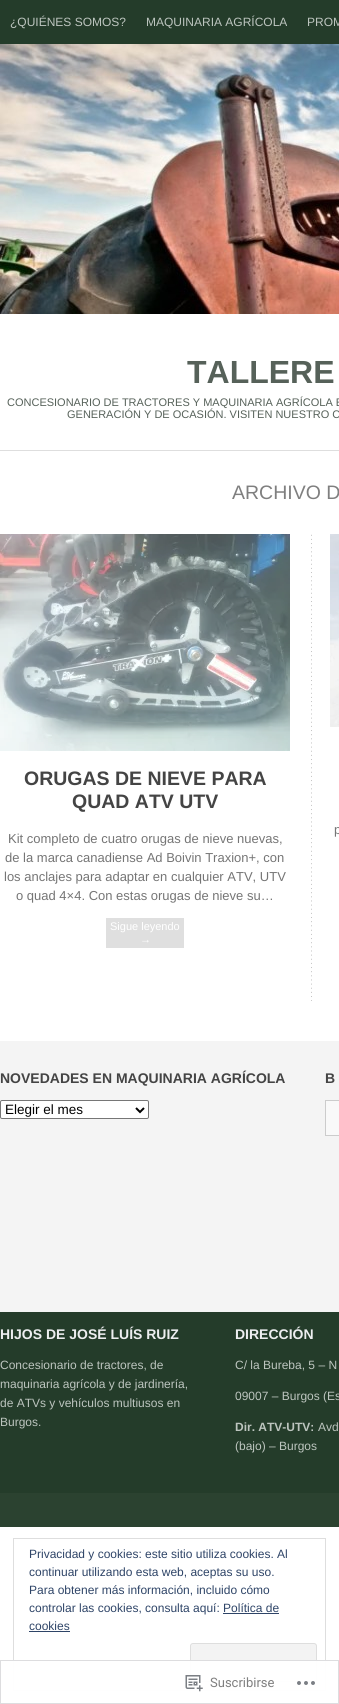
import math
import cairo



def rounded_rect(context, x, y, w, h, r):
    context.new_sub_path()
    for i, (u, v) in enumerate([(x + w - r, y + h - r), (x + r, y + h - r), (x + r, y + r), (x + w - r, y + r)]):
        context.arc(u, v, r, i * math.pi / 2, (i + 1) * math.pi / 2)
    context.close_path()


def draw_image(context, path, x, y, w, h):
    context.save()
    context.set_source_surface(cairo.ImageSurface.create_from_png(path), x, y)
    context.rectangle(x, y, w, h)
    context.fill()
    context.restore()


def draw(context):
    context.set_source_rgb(1, 1, 1)
    context.paint()
    context.set_source_rgb(36 / 255, 60 / 255, 42 / 255)
    context.rectangle(0, 0, 339, 44)
    context.fill()
    context.set_source_rgb(222 / 255, 222 / 255, 222 / 255)
    context.rectangle(0, 450, 339, 1)
    context.fill()
    draw_image(context, "images/1.png", 0, 44, 339, 270)
    draw_image(context, "images/2.png", 311, 534, 1, 467)
    draw_image(context, "images/3.png", 0, 534, 290, 217)
    context.set_source_rgb(223 / 255, 223 / 255, 223 / 255)
    context.rectangle(106, 918, 78, 30)
    context.fill()
    draw_image(context, "images/4.png", 330, 534, 9, 193)
    context.set_source_rgb(244 / 255, 244 / 255, 244 / 255)
    context.rectangle(0, 1041, 339, 271)
    context.fill()
    context.set_source_rgb(1, 1, 1)
    rounded_rect(context, 0.5, 1100.5, 148, 18, 1.5)
    context.fill_preserve()
    context.set_source_rgb(118 / 255, 118 / 255, 118 / 255)
    context.set_line_width(1)
    context.stroke()
    context.new_path()
    context.move_to(136, 1108)
    context.line_to(140, 1112)
    context.line_to(144, 1108)
    context.set_source_rgb(0, 0, 0)
    context.set_line_width(2)
    context.stroke()
    context.set_source_rgb(249 / 255, 249 / 255, 249 / 255)
    context.rectangle(325.5, 1100.5, 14, 35)
    context.fill_preserve()
    context.set_source_rgb(204 / 255, 204 / 255, 204 / 255)
    context.set_line_width(1)
    context.stroke()
    context.set_source_rgb(36 / 255, 60 / 255, 42 / 255)
    context.rectangle(0, 1312, 339, 181)
    context.fill()
    context.set_source_rgb(43 / 255, 66 / 255, 48 / 255)
    context.rectangle(0, 1493, 339, 34)
    context.fill()
    context.rectangle(13.5, 1538.5, 312, 152)
    context.set_source_rgb(222 / 255, 222 / 255, 222 / 255)
    context.stroke()
    context.set_source_rgb(243 / 255, 243 / 255, 243 / 255)
    rounded_rect(context, 190.5, 1643.5, 126, 38, 2.5)
    context.fill_preserve()
    context.set_source_rgb(222 / 255, 222 / 255, 222 / 255)
    context.stroke()
    context.set_source_rgba(1, 1, 1, 0.98)
    context.rectangle(13, 1660, 313, 31)
    context.fill()
    context.rectangle(0.5, 1660.5, 338, 43)
    context.set_source_rgba(220 / 255, 220 / 255, 222 / 255, 0.98)
    context.stroke()
    draw_image(context, "images/5.png", 185, 1675, 18, 17)
    draw_image(context, "images/6.png", 297, 1681, 18, 4)
    context.set_source_rgb(46 / 255, 68 / 255, 103 / 255)
    context.rectangle(223, 1613, 56, 1)
    context.fill()
    context.rectangle(29, 1631, 41, 1)
    context.fill()
    context.select_font_face("Liberation Sans")
    context.set_font_size(12)
    context.set_source_rgb(189 / 255, 197 / 255, 191 / 255)
    context.move_to(10, 26)
    context.show_text("¿QUIÉNES SOMOS?")
    context.move_to(146, 26)
    context.show_text("MAQUINARIA AGRÍCOLA")
    context.move_to(307, 26)
    context.show_text("PROM")
    context.select_font_face("Liberation Sans", cairo.FontSlant.NORMAL, cairo.FontWeight.BOLD)
    context.set_font_size(32)
    context.set_source_rgb(86 / 255, 97 / 255, 89 / 255)
    context.move_to(187, 383)
    context.show_text("TALLERE")
    context.select_font_face("Liberation Sans")
    context.set_font_size(11)
    context.move_to(7, 406)
    context.show_text("CONCESIONARIO DE TRACTORES Y MAQUINARIA AGRÍCOLA E")
    context.move_to(67, 418)
    context.show_text("GENERACIÓN Y DE OCASIÓN. VISITEN NUESTRO C")
    context.set_font_size(19.5)
    context.set_source_rgb(127 / 255, 127 / 255, 127 / 255)
    context.move_to(232, 499)
    context.show_text("ARCHIVO D")
    context.select_font_face("Liberation Sans", cairo.FontSlant.NORMAL, cairo.FontWeight.BOLD)
    context.set_source_rgb(68 / 255, 68 / 255, 68 / 255)
    context.move_to(24, 785)
    context.show_text("ORUGAS DE NIEVE PARA")
    context.move_to(72, 808)
    context.show_text("QUAD ATV UTV")
    context.select_font_face("Liberation Sans")
    context.set_font_size(13)
    context.set_source_rgb(117 / 255, 117 / 255, 117 / 255)
    context.move_to(8, 843)
    context.show_text("Kit completo de cuatro orugas de nieve nuevas,")
    context.move_to(5, 862)
    context.show_text("de la marca canadiense Ad Boivin Traxion+, con")
    context.move_to(4, 881)
    context.show_text("los anclajes para adaptar en cualquier ATV, UTV")
    context.move_to(16, 900)
    context.show_text("o quad 4×4. Con estas orugas de nieve su…")
    context.set_font_size(11)
    context.set_source_rgb(1, 1, 1)
    context.move_to(110, 930)
    context.show_text("Sigue leyendo")
    context.move_to(140, 943)
    context.show_text("→")
    context.set_font_size(13)
    context.set_source_rgb(117 / 255, 117 / 255, 117 / 255)
    context.move_to(334, 834)
    context.show_text("p")
    context.select_font_face("Liberation Sans", cairo.FontSlant.NORMAL, cairo.FontWeight.BOLD)
    context.set_font_size(14)
    context.set_source_rgb(68 / 255, 68 / 255, 68 / 255)
    context.move_to(0, 1083)
    context.show_text("NOVEDADES EN MAQUINARIA AGRÍCOLA")
    context.select_font_face("Liberation Sans")
    context.set_font_size(13.5)
    context.set_source_rgb(0, 0, 0)
    context.move_to(5, 1114)
    context.show_text("Elegir el mes")
    context.select_font_face("Liberation Sans", cairo.FontSlant.NORMAL, cairo.FontWeight.BOLD)
    context.set_font_size(14)
    context.set_source_rgb(68 / 255, 68 / 255, 68 / 255)
    context.move_to(325, 1083)
    context.show_text("B")
    context.set_source_rgb(237 / 255, 238 / 255, 240 / 255)
    context.move_to(0, 1339)
    context.show_text("HIJOS DE JOSÉ LUÍS RUIZ")
    context.select_font_face("Liberation Sans")
    context.set_font_size(12)
    context.set_source_rgb(189 / 255, 197 / 255, 191 / 255)
    context.move_to(0, 1369)
    context.show_text("Concesionario de tractores, de")
    context.move_to(0, 1388)
    context.show_text("maquinaria agrícola y de jardinería,")
    context.move_to(0, 1407)
    context.show_text("de ATVs y vehículos multiusos en")
    context.move_to(0, 1426)
    context.show_text("Burgos.")
    context.select_font_face("Liberation Sans", cairo.FontSlant.NORMAL, cairo.FontWeight.BOLD)
    context.set_font_size(14)
    context.set_source_rgb(237 / 255, 238 / 255, 240 / 255)
    context.move_to(235, 1339)
    context.show_text("DIRECCIÓN")
    context.select_font_face("Liberation Sans")
    context.set_font_size(12)
    context.set_source_rgb(189 / 255, 197 / 255, 191 / 255)
    context.move_to(235, 1369)
    context.show_text("C/ la Bureba, 5 – N")
    context.move_to(235, 1400)
    context.show_text("09007 – Burgos (Es")
    context.select_font_face("Liberation Sans", cairo.FontSlant.NORMAL, cairo.FontWeight.BOLD)
    context.move_to(235, 1431)
    context.show_text("Dir. ATV-UTV:")
    context.select_font_face("Liberation Sans")
    context.move_to(318, 1431)
    context.show_text("Avd")
    context.move_to(235, 1450)
    context.show_text("(bajo) – Burgos")
    context.select_font_face("Roboto")
    context.set_font_size(13)
    context.set_source_rgb(127 / 255, 127 / 255, 127 / 255)
    context.move_to(210, 1687)
    context.show_text("Suscribirse")
    context.select_font_face("Liberation Sans")
    context.set_font_size(12)
    context.set_source_rgb(46 / 255, 68 / 255, 103 / 255)
    context.move_to(29, 1558)
    context.show_text("Privacidad y cookies: este sitio utiliza cookies. Al")
    context.move_to(29, 1576)
    context.show_text("continuar utilizando esta web, aceptas su uso.")
    context.move_to(29, 1594)
    context.show_text("Para obtener más información, incluido cómo")
    context.move_to(29, 1612)
    context.show_text("controlar las cookies, consulta aquí: Política de")
    context.move_to(29, 1630)
    context.show_text("cookies")


surface = cairo.ImageSurface(cairo.Format.RGB24, 339, 1704)
context = cairo.Context(surface)
options = cairo.FontOptions()
options.set_hint_metrics(cairo.HintMetrics.OFF)
options.set_hint_style(cairo.HintStyle.NONE)
context.set_font_options(options)
context.set_miter_limit(4)
draw(context)
surface.write_to_png("out.png")
